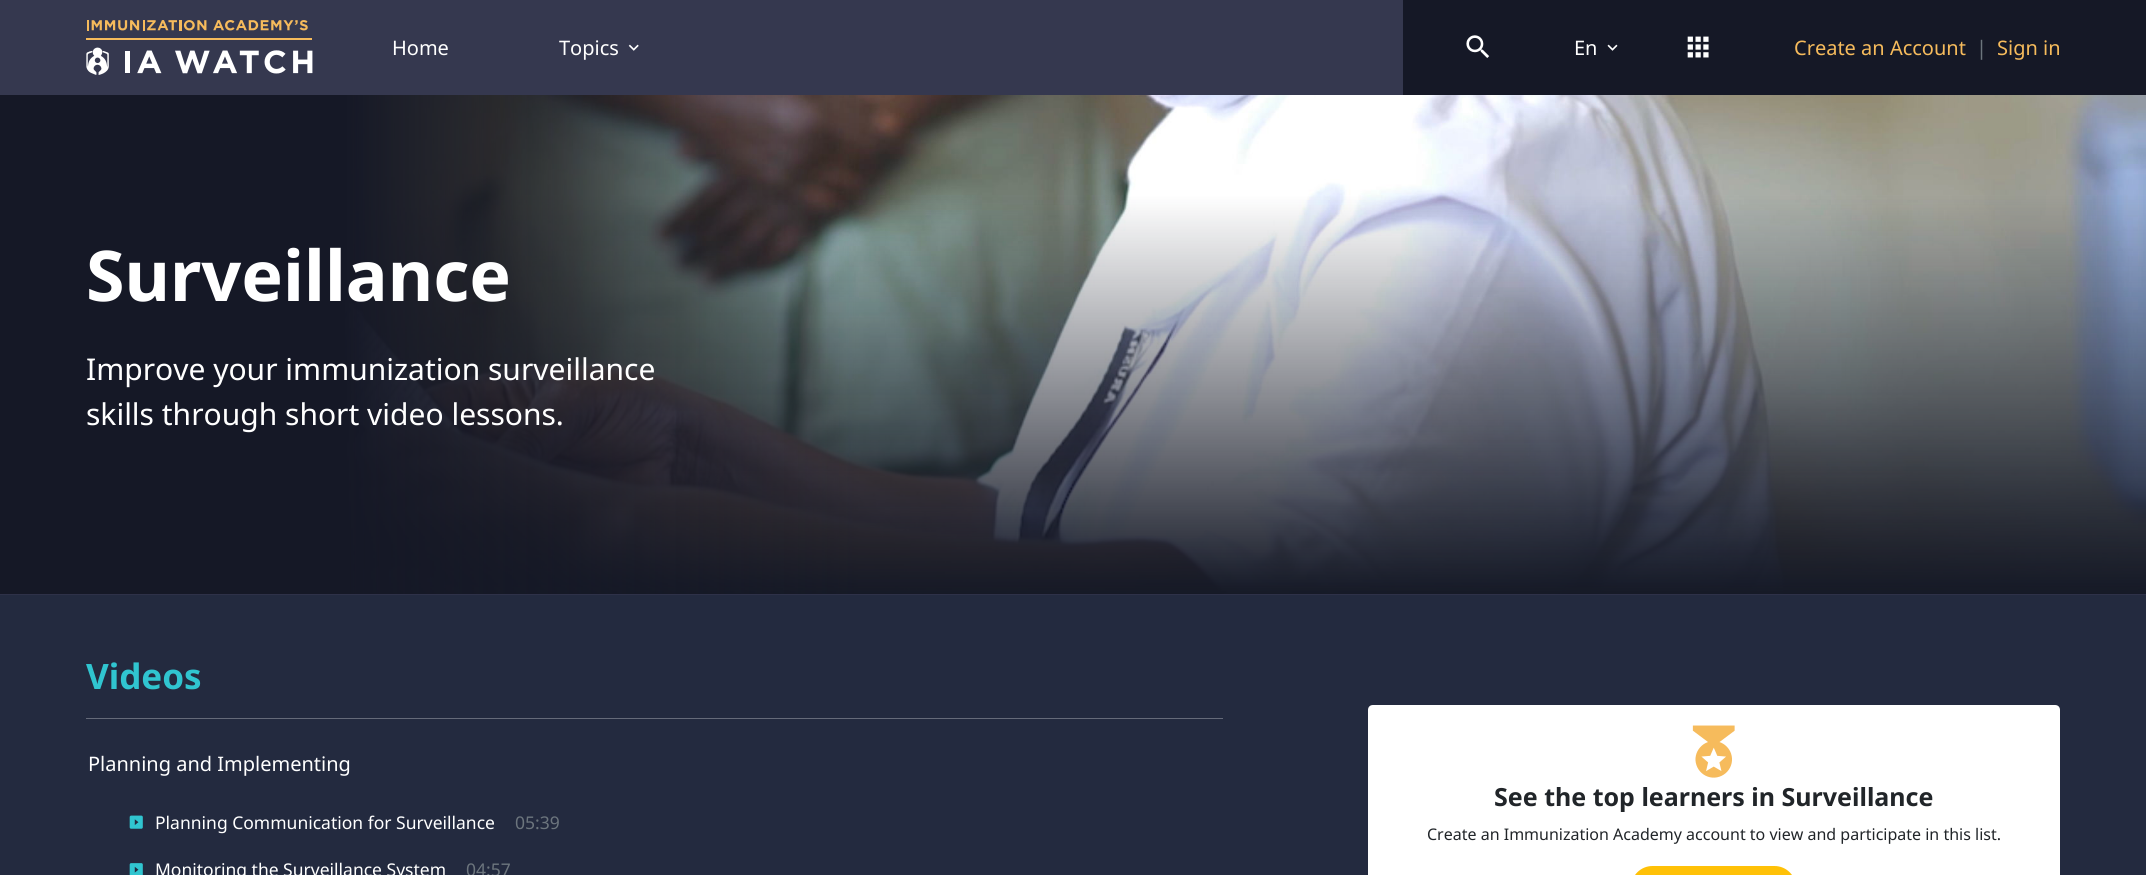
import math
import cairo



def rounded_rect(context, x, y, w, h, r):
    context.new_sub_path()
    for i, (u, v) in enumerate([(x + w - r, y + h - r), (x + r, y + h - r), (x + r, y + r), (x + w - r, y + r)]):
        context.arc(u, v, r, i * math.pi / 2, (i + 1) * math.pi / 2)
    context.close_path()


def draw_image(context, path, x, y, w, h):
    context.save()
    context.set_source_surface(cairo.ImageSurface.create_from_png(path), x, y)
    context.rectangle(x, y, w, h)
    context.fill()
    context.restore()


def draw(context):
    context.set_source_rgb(21 / 255, 24 / 255, 38 / 255)
    context.paint()
    context.set_source_rgb(53 / 255, 56 / 255, 79 / 255)
    context.rectangle(0, 0, 1403, 95)
    context.fill()
    draw_image(context, "images/1.png", 86, 20, 227, 55)
    draw_image(context, "images/2.png", 628, 44, 11, 7)
    draw_image(context, "images/3.png", 1466, 35, 24, 23)
    draw_image(context, "images/4.png", 1607, 44, 11, 7)
    draw_image(context, "images/5.png", 1687, 36, 22, 22)
    draw_image(context, "images/6.png", 0, 95, 2146, 499)
    context.set_source_rgb(46 / 255, 49 / 255, 72 / 255)
    context.rectangle(0, 594, 2146, 1)
    context.fill()
    context.set_source_rgb(35 / 255, 42 / 255, 63 / 255)
    context.rectangle(0, 595, 2146, 280)
    context.fill()
    context.set_source_rgb(101 / 255, 106 / 255, 121 / 255)
    context.rectangle(86, 718, 1137, 1)
    context.fill()
    draw_image(context, "images/7.png", 129, 815, 14, 14)
    draw_image(context, "images/8.png", 129, 863, 14, 12)
    context.set_source_rgb(1, 1, 1)
    context.new_path()
    context.move_to(1373, 705)
    context.line_to(2055, 705)
    context.curve_to(2058, 705, 2060, 707, 2060, 710)
    context.line_to(2060, 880)
    context.line_to(1368, 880)
    context.line_to(1368, 710)
    context.curve_to(1368, 707, 1370, 705, 1373, 705)
    context.close_path()
    context.fill()
    draw_image(context, "images/9.png", 1692, 725, 43, 53)
    context.set_source_rgb(1, 193 / 255, 7 / 255)
    rounded_rect(context, 1632.5, 867.5, 162, 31, 20)
    context.fill_preserve()
    context.set_line_width(3)
    context.stroke()
    context.select_font_face("Noto Sans")
    context.set_font_size(20)
    context.set_source_rgb(1, 1, 1)
    context.move_to(392, 55)
    context.show_text("Home")
    context.move_to(559, 55)
    context.show_text("Topics")
    context.move_to(1574, 55)
    context.show_text("En")
    context.set_source_rgb(246 / 255, 187 / 255, 92 / 255)
    context.move_to(1794, 55)
    context.show_text("Create an Account")
    context.set_source_rgb(108 / 255, 117 / 255, 125 / 255)
    context.move_to(1976, 55)
    context.show_text("|")
    context.set_source_rgb(246 / 255, 187 / 255, 92 / 255)
    context.move_to(1997, 55)
    context.show_text("Sign in")
    context.select_font_face("Noto Sans", cairo.FontSlant.NORMAL, cairo.FontWeight.BOLD)
    context.set_font_size(70)
    context.set_source_rgb(1, 1, 1)
    context.move_to(86, 301)
    context.show_text("Surveillance")
    context.select_font_face("Noto Sans")
    context.set_font_size(30)
    context.move_to(86, 380)
    context.show_text("Improve your immunization surveillance")
    context.move_to(86, 425)
    context.show_text("skills through short video lessons.")
    context.select_font_face("Noto Sans", cairo.FontSlant.NORMAL, cairo.FontWeight.BOLD)
    context.set_font_size(35)
    context.set_source_rgb(48 / 255, 197 / 255, 208 / 255)
    context.move_to(86, 689)
    context.show_text("Videos")
    context.select_font_face("Noto Sans")
    context.set_font_size(20)
    context.set_source_rgb(1, 1, 1)
    context.move_to(88, 771)
    context.show_text("Planning and Implementing")
    context.set_font_size(17.5)
    context.move_to(155, 829)
    context.show_text("Planning Communication for Surveillance")
    context.set_source_rgb(108 / 255, 117 / 255, 125 / 255)
    context.move_to(515, 829)
    context.show_text("05:39")
    context.set_source_rgb(1, 1, 1)
    context.move_to(155, 876)
    context.show_text("Monitoring the Surveillance System")
    context.set_source_rgb(108 / 255, 117 / 255, 125 / 255)
    context.move_to(466, 876)
    context.show_text("04:57")
    context.select_font_face("Noto Sans", cairo.FontSlant.NORMAL, cairo.FontWeight.BOLD)
    context.set_font_size(25)
    context.set_source_rgb(33 / 255, 37 / 255, 41 / 255)
    context.move_to(1494, 806)
    context.show_text("See the top learners in Surveillance")
    context.select_font_face("Noto Sans")
    context.set_font_size(16)
    context.move_to(1427, 840)
    context.show_text("Create an Immunization Academy account to view and participate in this list.")


surface = cairo.ImageSurface(cairo.Format.RGB24, 2146, 875)
context = cairo.Context(surface)
options = cairo.FontOptions()
options.set_hint_metrics(cairo.HintMetrics.OFF)
options.set_hint_style(cairo.HintStyle.NONE)
context.set_font_options(options)
context.set_miter_limit(4)
draw(context)
surface.write_to_png("out.png")
